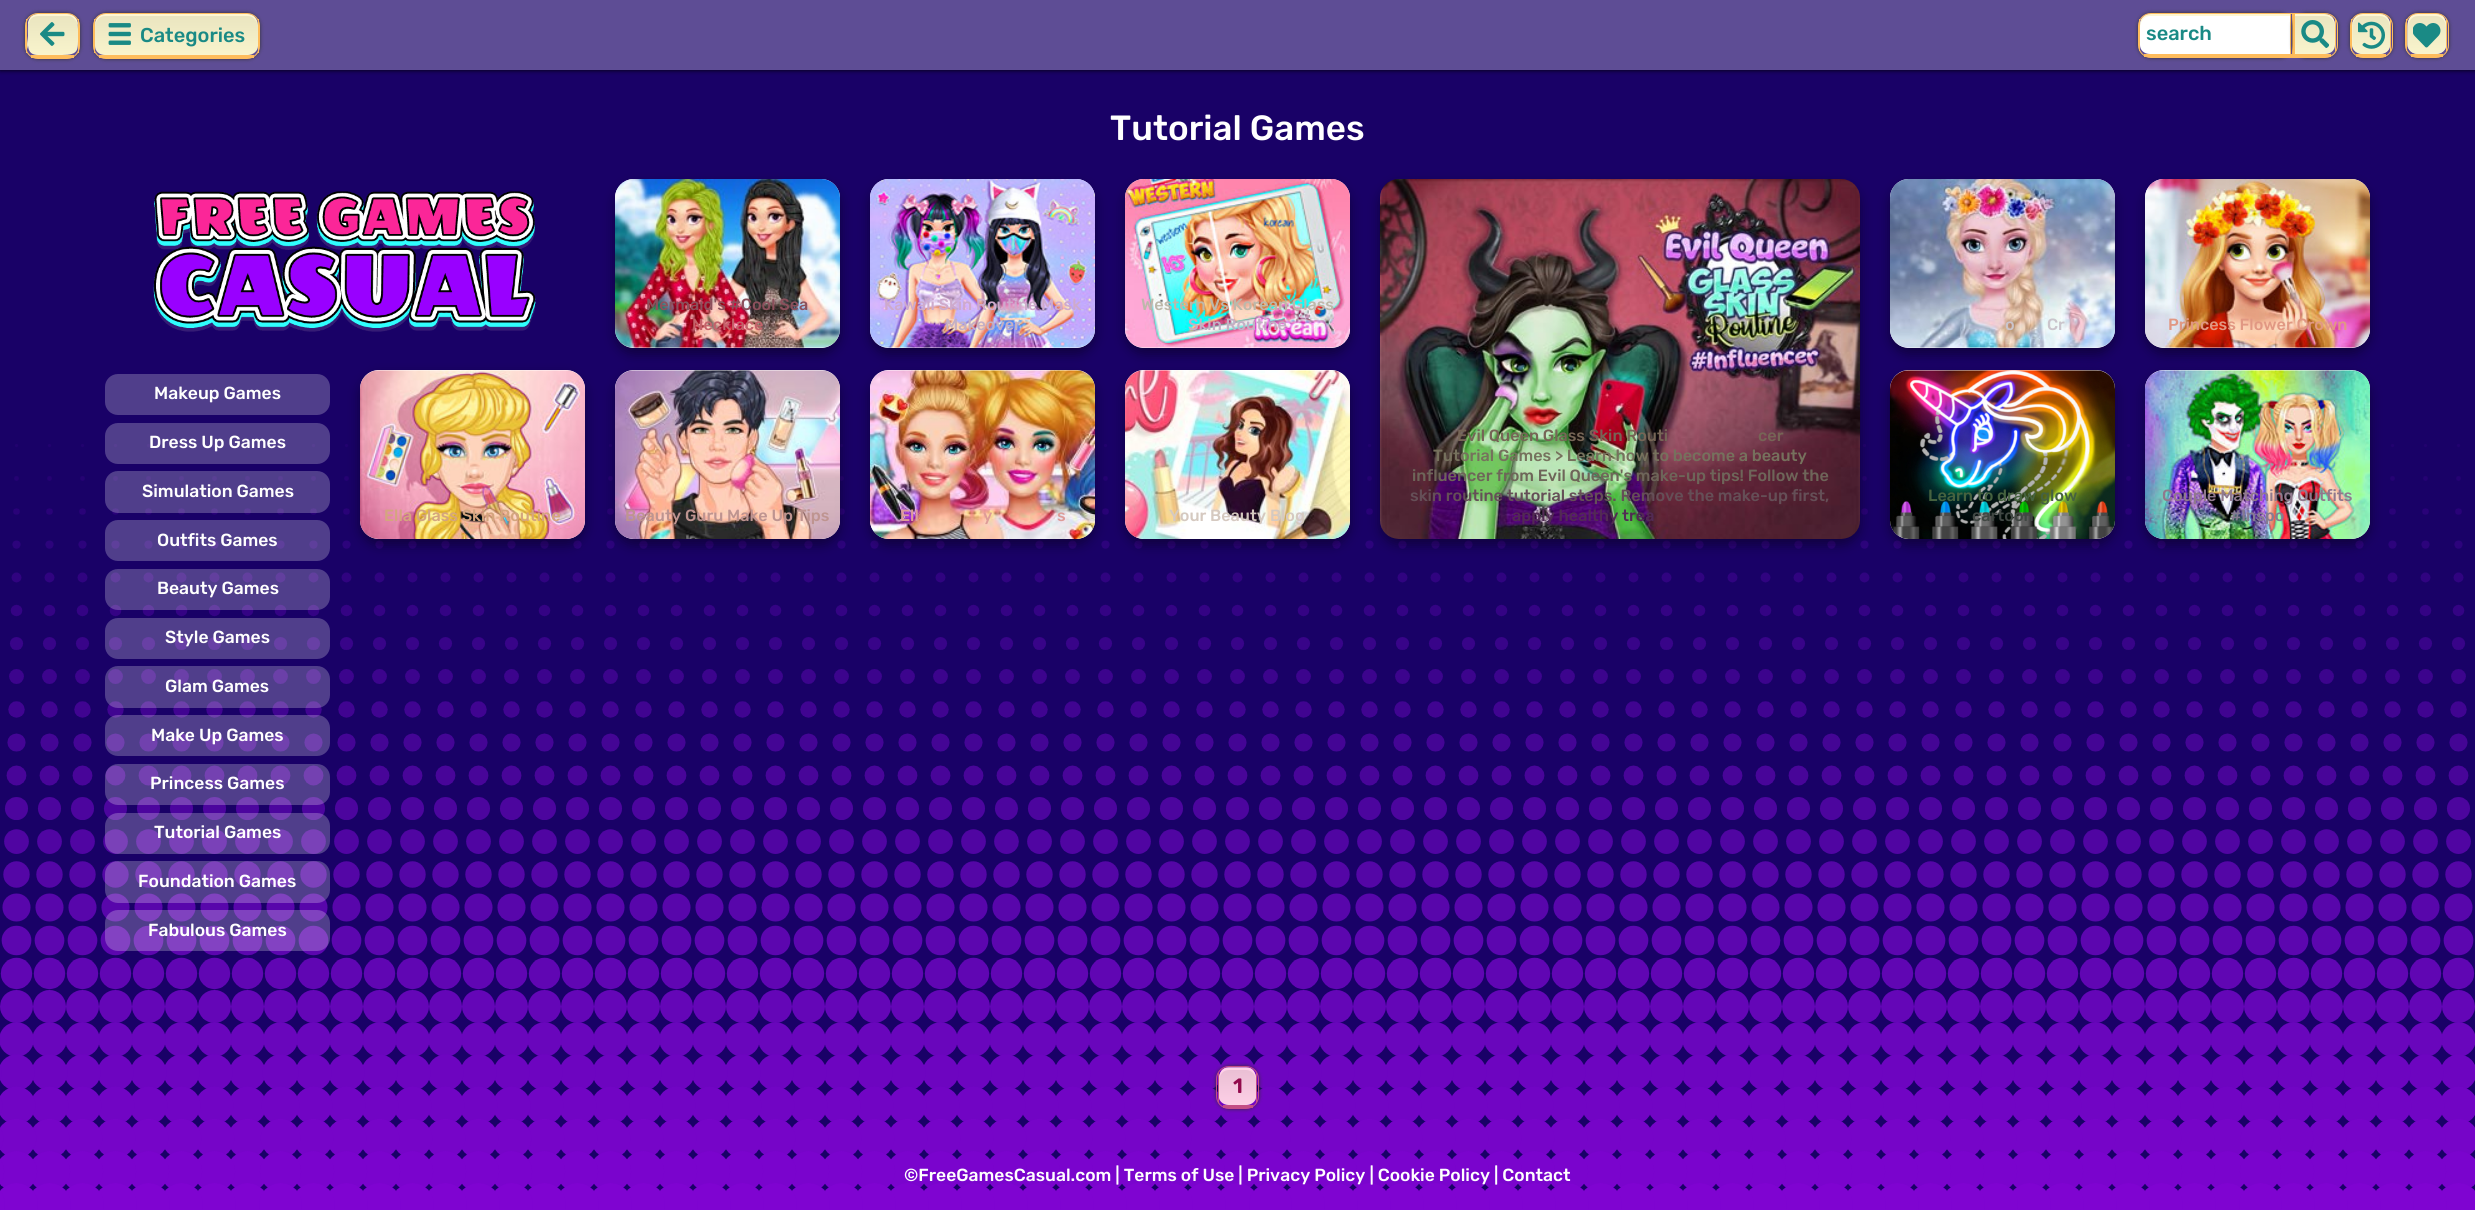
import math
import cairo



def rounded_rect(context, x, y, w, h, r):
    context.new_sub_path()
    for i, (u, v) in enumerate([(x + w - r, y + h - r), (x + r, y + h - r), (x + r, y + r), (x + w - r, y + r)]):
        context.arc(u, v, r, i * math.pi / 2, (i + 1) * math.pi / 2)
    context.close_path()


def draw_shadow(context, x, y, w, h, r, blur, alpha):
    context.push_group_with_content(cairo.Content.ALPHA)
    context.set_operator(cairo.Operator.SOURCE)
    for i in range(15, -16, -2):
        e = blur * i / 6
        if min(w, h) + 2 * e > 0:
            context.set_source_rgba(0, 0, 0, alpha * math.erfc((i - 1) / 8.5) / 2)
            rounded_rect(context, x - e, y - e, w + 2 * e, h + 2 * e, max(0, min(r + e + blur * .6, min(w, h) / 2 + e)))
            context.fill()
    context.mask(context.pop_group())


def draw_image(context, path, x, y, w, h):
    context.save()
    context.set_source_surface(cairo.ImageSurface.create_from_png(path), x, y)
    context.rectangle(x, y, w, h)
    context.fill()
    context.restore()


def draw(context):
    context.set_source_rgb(25 / 255, 1 / 255, 103 / 255)
    context.paint()
    draw_image(context, "images/1.png", 0, 444, 2475, 766)
    context.set_source_rgb(0, 0, 0)
    draw_shadow(context, 0, 0, 2475, 70, 0, 2.5, 1)
    context.set_source_rgb(94 / 255, 77 / 255, 149 / 255)
    context.rectangle(0, 0, 2475, 70)
    context.fill()
    context.save()
    context.set_fill_rule(cairo.FillRule.EVEN_ODD)
    context.new_path()
    context.move_to(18, 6)
    context.line_to(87, 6)
    context.line_to(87, 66)
    context.line_to(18, 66)
    context.close_path()
    context.move_to(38, 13)
    context.line_to(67, 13)
    context.curve_to(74, 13, 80, 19, 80, 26)
    context.line_to(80, 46)
    context.curve_to(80, 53, 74, 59, 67, 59)
    context.line_to(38, 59)
    context.curve_to(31, 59, 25, 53, 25, 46)
    context.line_to(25, 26)
    context.curve_to(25, 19, 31, 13, 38, 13)
    context.close_path()
    context.clip()
    context.set_source_rgb(51 / 255, 51 / 255, 51 / 255)
    draw_shadow(context, 25, 13, 55, 46, 13, 2, 1)
    context.restore()
    gradient = cairo.LinearGradient(53, 14, 53, 55)
    gradient.add_color_stop_rgba(0, 233 / 255, 228 / 255, 191 / 255, 1)
    gradient.add_color_stop_rgba(1, 249 / 255, 244 / 255, 204 / 255, 1)
    context.set_source(gradient)
    context.new_path()
    context.move_to(38, 14)
    context.line_to(70, 14)
    context.curve_to(79, 16, 78, 28, 78, 36)
    context.curve_to(78, 50, 79, 55, 62, 55)
    context.line_to(38, 55)
    context.curve_to(26, 55, 28, 44, 28, 36)
    context.curve_to(28, 28, 26, 14, 38, 14)
    context.close_path()
    context.fill()
    context.set_source_rgb(1, 247 / 255, 210 / 255)
    context.new_path()
    context.move_to(38, 16)
    context.line_to(70, 16)
    context.curve_to(75, 18, 77, 22, 78, 26)
    context.curve_to(78, 11, 64, 14, 52, 14)
    context.curve_to(44, 14, 30, 11, 28, 23)
    context.line_to(28, 36)
    context.curve_to(28, 40, 26, 45, 28, 49)
    context.line_to(28, 26)
    context.line_to(30, 20)
    context.curve_to(32, 17, 35, 16, 38, 16)
    context.close_path()
    context.fill()
    rounded_rect(context, 25.5, 13.5, 54, 45, 12.5)
    context.set_source_rgb(254 / 255, 188 / 255, 92 / 255)
    context.set_line_width(1)
    context.stroke()
    context.rectangle(78, 19, 1, 34)
    context.fill()
    context.rectangle(31, 55, 43, 3)
    context.fill()
    context.rectangle(26, 19, 1, 34)
    context.fill()
    draw_image(context, "images/2.png", 40, 22, 25, 24)
    context.save()
    context.set_fill_rule(cairo.FillRule.EVEN_ODD)
    context.new_path()
    context.move_to(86, 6)
    context.line_to(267, 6)
    context.line_to(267, 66)
    context.line_to(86, 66)
    context.close_path()
    context.move_to(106, 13)
    context.line_to(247, 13)
    context.curve_to(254, 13, 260, 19, 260, 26)
    context.line_to(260, 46)
    context.curve_to(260, 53, 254, 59, 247, 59)
    context.line_to(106, 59)
    context.curve_to(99, 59, 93, 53, 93, 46)
    context.line_to(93, 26)
    context.curve_to(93, 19, 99, 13, 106, 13)
    context.close_path()
    context.clip()
    context.set_source_rgb(51 / 255, 51 / 255, 51 / 255)
    draw_shadow(context, 93, 13, 167, 46, 13, 2, 1)
    context.restore()
    gradient = cairo.LinearGradient(176, 14, 176, 55)
    gradient.add_color_stop_rgba(0, 233 / 255, 228 / 255, 191 / 255, 1)
    gradient.add_color_stop_rgba(1, 249 / 255, 244 / 255, 204 / 255, 1)
    context.set_source(gradient)
    context.new_path()
    context.move_to(105, 14)
    context.line_to(248, 14)
    context.curve_to(253, 14, 258, 19, 258, 25)
    context.line_to(258, 46)
    context.curve_to(258, 51, 253, 55, 248, 55)
    context.line_to(105, 55)
    context.curve_to(99, 55, 95, 51, 95, 46)
    context.line_to(95, 25)
    context.curve_to(95, 19, 99, 14, 105, 14)
    context.close_path()
    context.fill()
    context.set_source_rgb(1, 247 / 255, 210 / 255)
    context.new_path()
    context.move_to(105, 16)
    context.line_to(248, 16)
    context.curve_to(252, 16, 256, 19, 257, 24)
    context.curve_to(257, 18, 253, 14, 248, 14)
    context.line_to(105, 14)
    context.curve_to(99, 14, 95, 19, 95, 25)
    context.line_to(95, 28)
    context.curve_to(95, 21, 99, 16, 105, 16)
    context.close_path()
    context.fill()
    rounded_rect(context, 93.5, 13.5, 166, 45, 12.5)
    context.set_source_rgb(254 / 255, 188 / 255, 92 / 255)
    context.stroke()
    context.rectangle(258, 19, 1, 34)
    context.fill()
    context.rectangle(99, 55, 155, 3)
    context.fill()
    context.rectangle(94, 19, 1, 34)
    context.fill()
    draw_image(context, "images/3.png", 108, 23, 23, 22)
    context.save()
    context.set_fill_rule(cairo.FillRule.EVEN_ODD)
    context.new_path()
    context.move_to(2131, 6)
    context.line_to(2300, 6)
    context.line_to(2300, 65)
    context.line_to(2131, 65)
    context.close_path()
    context.move_to(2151, 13)
    context.line_to(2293, 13)
    context.line_to(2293, 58)
    context.line_to(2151, 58)
    context.curve_to(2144, 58, 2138, 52, 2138, 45)
    context.line_to(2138, 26)
    context.curve_to(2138, 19, 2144, 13, 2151, 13)
    context.close_path()
    context.clip()
    context.set_source_rgb(51 / 255, 51 / 255, 51 / 255)
    draw_shadow(context, 2138, 13, 155, 45, 13, 2, 1)
    context.restore()
    context.set_source_rgb(1, 1, 1)
    context.new_path()
    context.move_to(2150, 14)
    context.line_to(2290, 14)
    context.line_to(2290, 54)
    context.line_to(2150, 54)
    context.curve_to(2144, 54, 2140, 50, 2140, 45)
    context.line_to(2140, 25)
    context.curve_to(2140, 19, 2144, 14, 2150, 14)
    context.close_path()
    context.fill()
    context.set_source_rgb(1, 247 / 255, 210 / 255)
    context.new_path()
    context.move_to(2150, 16)
    context.line_to(2290, 16)
    context.line_to(2290, 14)
    context.line_to(2150, 14)
    context.curve_to(2144, 14, 2140, 19, 2140, 25)
    context.line_to(2140, 28)
    context.curve_to(2140, 21, 2144, 16, 2150, 16)
    context.close_path()
    context.fill()
    context.new_path()
    context.move_to(2151, 13.5)
    context.line_to(2292.5, 13.5)
    context.line_to(2292.5, 57.5)
    context.line_to(2151, 57.5)
    context.curve_to(2144, 57.5, 2138.5, 52, 2138.5, 45)
    context.line_to(2138.5, 26)
    context.curve_to(2138.5, 19, 2144, 13.5, 2151, 13.5)
    context.close_path()
    context.set_source_rgb(254 / 255, 188 / 255, 92 / 255)
    context.stroke()
    context.rectangle(2290, 13, 1, 45)
    context.fill()
    context.rectangle(2144, 54, 149, 3)
    context.fill()
    context.rectangle(2139, 19, 1, 32)
    context.fill()
    context.save()
    context.set_fill_rule(cairo.FillRule.EVEN_ODD)
    context.new_path()
    context.move_to(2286, 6)
    context.line_to(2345, 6)
    context.line_to(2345, 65)
    context.line_to(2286, 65)
    context.close_path()
    context.move_to(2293, 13)
    context.line_to(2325, 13)
    context.curve_to(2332, 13, 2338, 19, 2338, 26)
    context.line_to(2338, 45)
    context.curve_to(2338, 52, 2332, 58, 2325, 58)
    context.line_to(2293, 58)
    context.close_path()
    context.clip()
    context.set_source_rgb(51 / 255, 51 / 255, 51 / 255)
    draw_shadow(context, 2293, 13, 45, 45, 13, 2, 1)
    context.restore()
    gradient = cairo.LinearGradient(2315, 14, 2315, 54)
    gradient.add_color_stop_rgba(0, 233 / 255, 228 / 255, 191 / 255, 1)
    gradient.add_color_stop_rgba(1, 249 / 255, 244 / 255, 204 / 255, 1)
    context.set_source(gradient)
    context.new_path()
    context.move_to(2295, 14)
    context.line_to(2325, 14)
    context.curve_to(2331, 14, 2335, 19, 2335, 25)
    context.line_to(2335, 45)
    context.curve_to(2335, 50, 2331, 54, 2325, 54)
    context.line_to(2295, 54)
    context.close_path()
    context.fill()
    context.set_source_rgb(1, 247 / 255, 210 / 255)
    context.new_path()
    context.move_to(2295, 16)
    context.line_to(2325, 16)
    context.curve_to(2331, 16, 2335, 21, 2335, 28)
    context.curve_to(2335, 13, 2328, 14, 2315, 14)
    context.line_to(2295, 14)
    context.close_path()
    context.fill()
    context.new_path()
    context.move_to(2293.5, 13.5)
    context.line_to(2325, 13.5)
    context.curve_to(2332, 13.5, 2337.5, 19, 2337.5, 26)
    context.line_to(2337.5, 45)
    context.curve_to(2337.5, 52, 2332, 57.5, 2325, 57.5)
    context.line_to(2293.5, 57.5)
    context.close_path()
    context.set_source_rgb(254 / 255, 188 / 255, 92 / 255)
    context.stroke()
    context.rectangle(2335, 19, 1, 32)
    context.fill()
    context.rectangle(2293, 54, 38, 3)
    context.fill()
    context.rectangle(2294, 13, 1, 45)
    context.fill()
    draw_image(context, "images/4.png", 2301, 20, 28, 28)
    context.save()
    context.set_fill_rule(cairo.FillRule.EVEN_ODD)
    context.new_path()
    context.move_to(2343, 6)
    context.line_to(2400, 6)
    context.line_to(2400, 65)
    context.line_to(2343, 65)
    context.close_path()
    context.move_to(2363, 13)
    context.line_to(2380, 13)
    context.curve_to(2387, 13, 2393, 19, 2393, 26)
    context.line_to(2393, 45)
    context.curve_to(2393, 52, 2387, 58, 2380, 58)
    context.line_to(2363, 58)
    context.curve_to(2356, 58, 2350, 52, 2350, 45)
    context.line_to(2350, 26)
    context.curve_to(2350, 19, 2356, 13, 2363, 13)
    context.close_path()
    context.clip()
    context.set_source_rgb(51 / 255, 51 / 255, 51 / 255)
    draw_shadow(context, 2350, 13, 43, 45, 13, 2, 1)
    context.restore()
    context.set_source_rgb(249 / 255, 244 / 255, 204 / 255)
    context.new_path()
    context.move_to(2362, 14)
    context.line_to(2380, 14)
    context.curve_to(2386, 14, 2390, 19, 2390, 25)
    context.line_to(2390, 45)
    context.curve_to(2390, 50, 2386, 54, 2380, 54)
    context.line_to(2362, 54)
    context.curve_to(2357, 54, 2352, 50, 2352, 45)
    context.line_to(2352, 25)
    context.curve_to(2352, 19, 2357, 14, 2362, 14)
    context.close_path()
    context.fill()
    draw_image(context, "images/5.png", 2352, 13, 38, 41)
    context.set_source_rgb(1, 247 / 255, 210 / 255)
    context.new_path()
    context.move_to(2362, 16)
    context.line_to(2380, 16)
    context.curve_to(2386, 16, 2390, 21, 2390, 28)
    context.line_to(2390, 25)
    context.curve_to(2390, 19, 2385.5, 14, 2380, 14)
    context.line_to(2362.5, 14)
    context.curve_to(2357, 14, 2353, 18.5, 2352.5, 24)
    context.curve_to(2354, 19.5, 2358, 16, 2362, 16)
    context.close_path()
    context.fill()
    rounded_rect(context, 2350.5, 13.5, 42, 44, 12.5)
    context.set_source_rgb(254 / 255, 188 / 255, 92 / 255)
    context.stroke()
    context.rectangle(2390, 19, 1, 32)
    context.fill()
    context.rectangle(2356, 54, 30, 3)
    context.fill()
    context.rectangle(2351, 19, 1, 32)
    context.fill()
    draw_image(context, "images/6.png", 2358, 21, 27, 28)
    context.save()
    context.set_fill_rule(cairo.FillRule.EVEN_ODD)
    context.new_path()
    context.move_to(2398, 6)
    context.line_to(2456, 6)
    context.line_to(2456, 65)
    context.line_to(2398, 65)
    context.close_path()
    context.move_to(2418, 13)
    context.line_to(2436, 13)
    context.curve_to(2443, 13, 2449, 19, 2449, 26)
    context.line_to(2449, 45)
    context.curve_to(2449, 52, 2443, 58, 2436, 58)
    context.line_to(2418, 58)
    context.curve_to(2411, 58, 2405, 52, 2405, 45)
    context.line_to(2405, 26)
    context.curve_to(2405, 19, 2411, 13, 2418, 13)
    context.close_path()
    context.clip()
    context.set_source_rgb(51 / 255, 51 / 255, 51 / 255)
    draw_shadow(context, 2405, 13, 44, 45, 13, 2, 1)
    context.restore()
    context.set_source_rgb(249 / 255, 244 / 255, 204 / 255)
    context.new_path()
    context.move_to(2418, 14)
    context.line_to(2436, 14)
    context.curve_to(2442, 14, 2446, 19, 2446, 25)
    context.line_to(2446, 45)
    context.curve_to(2446, 50, 2442, 54, 2436, 54)
    context.line_to(2418, 54)
    context.curve_to(2412, 54, 2408, 50, 2408, 45)
    context.line_to(2408, 25)
    context.curve_to(2408, 19, 2412, 14, 2418, 14)
    context.close_path()
    context.fill()
    draw_image(context, "images/7.png", 2407, 13, 39, 41)
    context.set_source_rgb(1, 247 / 255, 210 / 255)
    context.new_path()
    context.move_to(2418, 16)
    context.line_to(2436, 16)
    context.curve_to(2442, 16, 2446, 21, 2446, 28)
    context.line_to(2446, 47)
    context.line_to(2446, 31.5)
    context.curve_to(2446, 25, 2447, 16, 2438.5, 14)
    context.line_to(2427, 14)
    context.line_to(2415.5, 14)
    context.curve_to(2407, 16, 2407.5, 25, 2407.5, 31.5)
    context.line_to(2407.5, 41.5)
    context.curve_to(2407.5, 43.5, 2407.5, 46, 2408, 47.5)
    context.line_to(2408, 28)
    context.curve_to(2408, 21, 2412, 16, 2418, 16)
    context.close_path()
    context.fill()
    rounded_rect(context, 2405.5, 13.5, 43, 44, 12.5)
    context.set_source_rgb(254 / 255, 188 / 255, 92 / 255)
    context.stroke()
    context.rectangle(2446, 19, 1, 32)
    context.fill()
    context.rectangle(2411, 54, 32, 3)
    context.fill()
    context.rectangle(2406, 19, 1, 32)
    context.fill()
    draw_image(context, "images/8.png", 2413, 23, 28, 25)
    draw_image(context, "images/9.png", 153, 191, 383, 141)
    context.set_source_rgb(0, 0, 0)
    draw_shadow(context, 615, 185, 225, 169, 19, 6, 0.4)
    context.set_source_rgb(1, 1, 1)
    rounded_rect(context, 615, 179, 225, 169, 19)
    context.fill()
    draw_image(context, "images/10.png", 615, 179, 225, 169)
    context.set_source_rgb(0, 0, 0)
    draw_shadow(context, 870, 185, 225, 169, 19, 6, 0.4)
    context.set_source_rgb(1, 1, 1)
    rounded_rect(context, 870, 179, 225, 169, 19)
    context.fill()
    draw_image(context, "images/11.png", 870, 179, 225, 169)
    context.set_source_rgb(0, 0, 0)
    draw_shadow(context, 1125, 185, 225, 169, 19, 6, 0.4)
    context.set_source_rgb(1, 1, 1)
    rounded_rect(context, 1125, 179, 225, 169, 19)
    context.fill()
    draw_image(context, "images/12.png", 1125, 179, 225, 169)
    context.set_source_rgb(0, 0, 0)
    draw_shadow(context, 1890, 185, 225, 169, 19, 6, 0.4)
    context.set_source_rgb(1, 1, 1)
    rounded_rect(context, 1890, 179, 225, 169, 19)
    context.fill()
    draw_image(context, "images/13.png", 1890, 179, 225, 169)
    context.set_source_rgb(0, 0, 0)
    draw_shadow(context, 2145, 185, 225, 169, 19, 6, 0.4)
    context.set_source_rgb(1, 1, 1)
    rounded_rect(context, 2145, 179, 225, 169, 19)
    context.fill()
    draw_image(context, "images/14.png", 2145, 179, 225, 169)
    context.set_source_rgb(80 / 255, 62 / 255, 139 / 255)
    rounded_rect(context, 105, 374, 225, 41, 13)
    context.fill()
    context.set_source_rgba(1, 1, 1, 0.24)
    rounded_rect(context, 105, 423, 225, 41, 13)
    context.fill()
    rounded_rect(context, 105, 471, 225, 42, 13)
    context.fill()
    rounded_rect(context, 105, 520, 225, 41, 13)
    context.fill()
    rounded_rect(context, 105, 569, 225, 41, 13)
    context.fill()
    rounded_rect(context, 105, 618, 225, 41, 13)
    context.fill()
    rounded_rect(context, 105, 666, 225, 42, 13)
    context.fill()
    rounded_rect(context, 105, 715, 225, 41, 13)
    context.fill()
    rounded_rect(context, 105, 764, 225, 41, 13)
    context.fill()
    rounded_rect(context, 105, 813, 225, 41, 13)
    context.fill()
    rounded_rect(context, 105, 861, 225, 42, 13)
    context.fill()
    rounded_rect(context, 105, 910, 225, 41, 13)
    context.fill()
    context.set_source_rgb(0, 0, 0)
    draw_shadow(context, 360, 376, 225, 169, 19, 6, 0.4)
    context.set_source_rgb(1, 1, 1)
    rounded_rect(context, 360, 370, 225, 169, 19)
    context.fill()
    draw_image(context, "images/15.png", 360, 370, 225, 169)
    context.set_source_rgb(0, 0, 0)
    draw_shadow(context, 615, 376, 225, 169, 19, 6, 0.4)
    context.set_source_rgb(1, 1, 1)
    rounded_rect(context, 615, 370, 225, 169, 19)
    context.fill()
    draw_image(context, "images/16.png", 615, 370, 225, 169)
    context.set_source_rgb(0, 0, 0)
    draw_shadow(context, 870, 376, 225, 169, 19, 6, 0.4)
    context.set_source_rgb(1, 1, 1)
    rounded_rect(context, 870, 370, 225, 169, 19)
    context.fill()
    draw_image(context, "images/17.png", 870, 370, 225, 169)
    context.set_source_rgb(0, 0, 0)
    draw_shadow(context, 1125, 376, 225, 169, 19, 6, 0.4)
    context.set_source_rgb(1, 1, 1)
    rounded_rect(context, 1125, 370, 225, 169, 19)
    context.fill()
    draw_image(context, "images/18.png", 1125, 370, 225, 169)
    context.set_source_rgb(0, 0, 0)
    draw_shadow(context, 1380, 185, 480, 360, 19, 6, 0.4)
    draw_image(context, "images/19.png", 1380, 179, 480, 360)
    draw_shadow(context, 1890, 376, 225, 169, 19, 6, 0.4)
    context.set_source_rgb(1, 1, 1)
    rounded_rect(context, 1890, 370, 225, 169, 19)
    context.fill()
    draw_image(context, "images/20.png", 1890, 370, 225, 169)
    context.set_source_rgb(0, 0, 0)
    draw_shadow(context, 2145, 376, 225, 169, 19, 6, 0.4)
    context.set_source_rgb(1, 1, 1)
    rounded_rect(context, 2145, 370, 225, 169, 19)
    context.fill()
    draw_image(context, "images/21.png", 2145, 370, 225, 169)
    context.save()
    context.set_fill_rule(cairo.FillRule.EVEN_ODD)
    context.new_path()
    context.move_to(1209, 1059)
    context.line_to(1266, 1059)
    context.line_to(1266, 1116)
    context.line_to(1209, 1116)
    context.close_path()
    context.move_to(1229, 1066)
    context.line_to(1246, 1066)
    context.curve_to(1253, 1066, 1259, 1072, 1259, 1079)
    context.line_to(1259, 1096)
    context.curve_to(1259, 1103, 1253, 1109, 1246, 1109)
    context.line_to(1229, 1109)
    context.curve_to(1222, 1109, 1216, 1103, 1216, 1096)
    context.line_to(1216, 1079)
    context.curve_to(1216, 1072, 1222, 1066, 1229, 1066)
    context.close_path()
    context.clip()
    context.set_source_rgb(51 / 255, 51 / 255, 51 / 255)
    draw_shadow(context, 1216, 1066, 43, 43, 13, 2, 1)
    context.restore()
    draw_image(context, "images/22.png", 1219, 1067, 37, 38)
    context.set_source_rgb(1, 209 / 255, 232 / 255)
    context.new_path()
    context.move_to(1229, 1070)
    context.line_to(1246, 1070)
    context.curve_to(1252, 1070, 1256, 1075, 1256, 1081)
    context.line_to(1256, 1098)
    context.line_to(1256, 1084.5)
    context.curve_to(1256, 1078, 1256.5, 1069.5, 1248.5, 1067.5)
    context.line_to(1237.5, 1067.5)
    context.line_to(1226.5, 1067.5)
    context.curve_to(1218.5, 1069.5, 1219, 1078, 1219, 1084.5)
    context.line_to(1219, 1098)
    context.line_to(1219, 1081)
    context.curve_to(1219, 1075, 1223, 1070, 1229, 1070)
    context.close_path()
    context.fill()
    rounded_rect(context, 1216.5, 1066.5, 42, 42, 12.5)
    context.set_source_rgb(195 / 255, 77 / 255, 133 / 255)
    context.stroke()
    context.rectangle(1256, 1073, 1, 30)
    context.fill()
    context.rectangle(1223, 1105, 30, 3)
    context.fill()
    context.rectangle(1218, 1073, 1, 30)
    context.fill()
    context.select_font_face("Rubik Light")
    context.set_font_size(20)
    context.set_source_rgb(26 / 255, 138 / 255, 133 / 255)
    context.move_to(140, 42)
    context.show_text("Categories")
    context.move_to(2146, 40)
    context.show_text("search")
    context.set_font_size(35)
    context.set_source_rgb(1, 1, 1)
    context.move_to(1110, 140)
    context.show_text("Tutorial Games")
    context.set_font_size(16.25)
    context.set_source_rgb(140 / 255, 80 / 255, 92 / 255)
    context.move_to(646, 310)
    context.show_text("Mermaid's #Cool Sea")
    context.set_source_rgb(196 / 255, 98 / 255, 106 / 255)
    context.move_to(692, 330)
    context.show_text("Necklace")
    context.set_source_rgb(206 / 255, 170 / 255, 204 / 255)
    context.move_to(884, 310)
    context.show_text("Kawaii Skin Routine Mask")
    context.set_source_rgb(196 / 255, 176 / 255, 197 / 255)
    context.move_to(945, 330)
    context.show_text("Makeover")
    context.set_source_rgb(189 / 255, 184 / 255, 170 / 255)
    context.move_to(1141, 310)
    context.show_text("Western Vs Korean Glass")
    context.set_source_rgb(196 / 255, 176 / 255, 197 / 255)
    context.move_to(1188, 330)
    context.show_text("Skin Routine")
    context.set_source_rgb(202 / 255, 197 / 255, 204 / 255)
    context.move_to(2005, 330)
    context.show_text("o")
    context.move_to(2047, 330)
    context.show_text("Cr")
    context.set_source_rgb(225 / 255, 152 / 255, 131 / 255)
    context.move_to(2168, 330)
    context.show_text("Princess Flower Crown")
    context.set_font_size(17.5)
    context.set_source_rgb(1, 1, 1)
    context.move_to(154, 399)
    context.show_text("Makeup Games")
    context.move_to(149, 448)
    context.show_text("Dress Up Games")
    context.move_to(142, 497)
    context.show_text("Simulation Games")
    context.move_to(157, 546)
    context.show_text("Outfits Games")
    context.move_to(157, 594)
    context.show_text("Beauty Games")
    context.move_to(165, 643)
    context.show_text("Style Games")
    context.move_to(165, 692)
    context.show_text("Glam Games")
    context.move_to(151, 741)
    context.show_text("Make Up Games")
    context.move_to(150, 789)
    context.show_text("Princess Games")
    context.move_to(154, 838)
    context.show_text("Tutorial Games")
    context.move_to(138, 887)
    context.show_text("Foundation Games")
    context.move_to(148, 936)
    context.show_text("Fabulous Games")
    context.set_font_size(16.25)
    context.set_source_rgb(212 / 255, 165 / 255, 126 / 255)
    context.move_to(384, 521)
    context.show_text("Ella Glass Skin Routine")
    context.set_source_rgb(190 / 255, 148 / 255, 144 / 255)
    context.move_to(625, 521)
    context.show_text("Beauty Guru Make Up Tips")
    context.set_source_rgb(222 / 255, 156 / 255, 152 / 255)
    context.move_to(900, 521)
    context.show_text("Ell")
    context.move_to(983, 521)
    context.show_text("y")
    context.move_to(1057, 521)
    context.show_text("s")
    context.set_source_rgb(213 / 255, 201 / 255, 192 / 255)
    context.move_to(1169, 521)
    context.show_text("Your Beauty Blog")
    context.set_source_rgb(118 / 255, 101 / 255, 86 / 255)
    context.move_to(1457, 441)
    context.show_text("Evil Queen Glass Skin Routi")
    context.move_to(1758, 441)
    context.show_text("cer")
    context.set_source_rgb(118 / 255, 113 / 255, 93 / 255)
    context.move_to(1433, 461)
    context.show_text("Tutorial Games > Learn how to become a beauty")
    context.set_source_rgb(110 / 255, 101 / 255, 89 / 255)
    context.move_to(1412, 481)
    context.show_text("influencer from Evil Queen's make-up tips! Follow the")
    context.set_source_rgb(101 / 255, 79 / 255, 87 / 255)
    context.move_to(1410, 501)
    context.show_text("skin routine tutorial steps. Remove the make-up first,")
    context.set_source_rgb(82 / 255, 42 / 255, 84 / 255)
    context.move_to(1512, 521)
    context.show_text("apply healthy trea")
    context.set_source_rgb(69 / 255, 98 / 255, 63 / 255)
    context.move_to(1928, 501)
    context.show_text("Learn to draw glow")
    context.set_source_rgb(64 / 255, 71 / 255, 67 / 255)
    context.move_to(1972, 521)
    context.show_text("cartoon")
    context.set_source_rgb(144 / 255, 121 / 255, 141 / 255)
    context.move_to(2162, 501)
    context.show_text("Couple Matching Outfits")
    context.set_source_rgb(133 / 255, 124 / 255, 146 / 255)
    context.move_to(2230, 521)
    context.show_text("#Inspo")
    context.select_font_face("Rubik", cairo.FontSlant.NORMAL, cairo.FontWeight.BOLD)
    context.set_font_size(20)
    context.set_source_rgb(146 / 255, 10 / 255, 76 / 255)
    context.move_to(1233, 1093)
    context.show_text("1")
    context.select_font_face("Rubik Light")
    context.set_font_size(17.5)
    context.set_source_rgb(1, 1, 1)
    context.move_to(904, 1181)
    context.show_text("©FreeGamesCasual.com | Terms of Use | Privacy Policy | Cookie Policy | Contact")


surface = cairo.ImageSurface(cairo.Format.RGB24, 2475, 1210)
context = cairo.Context(surface)
options = cairo.FontOptions()
options.set_hint_metrics(cairo.HintMetrics.OFF)
options.set_hint_style(cairo.HintStyle.NONE)
context.set_font_options(options)
context.set_miter_limit(4)
draw(context)
surface.write_to_png("out.png")
